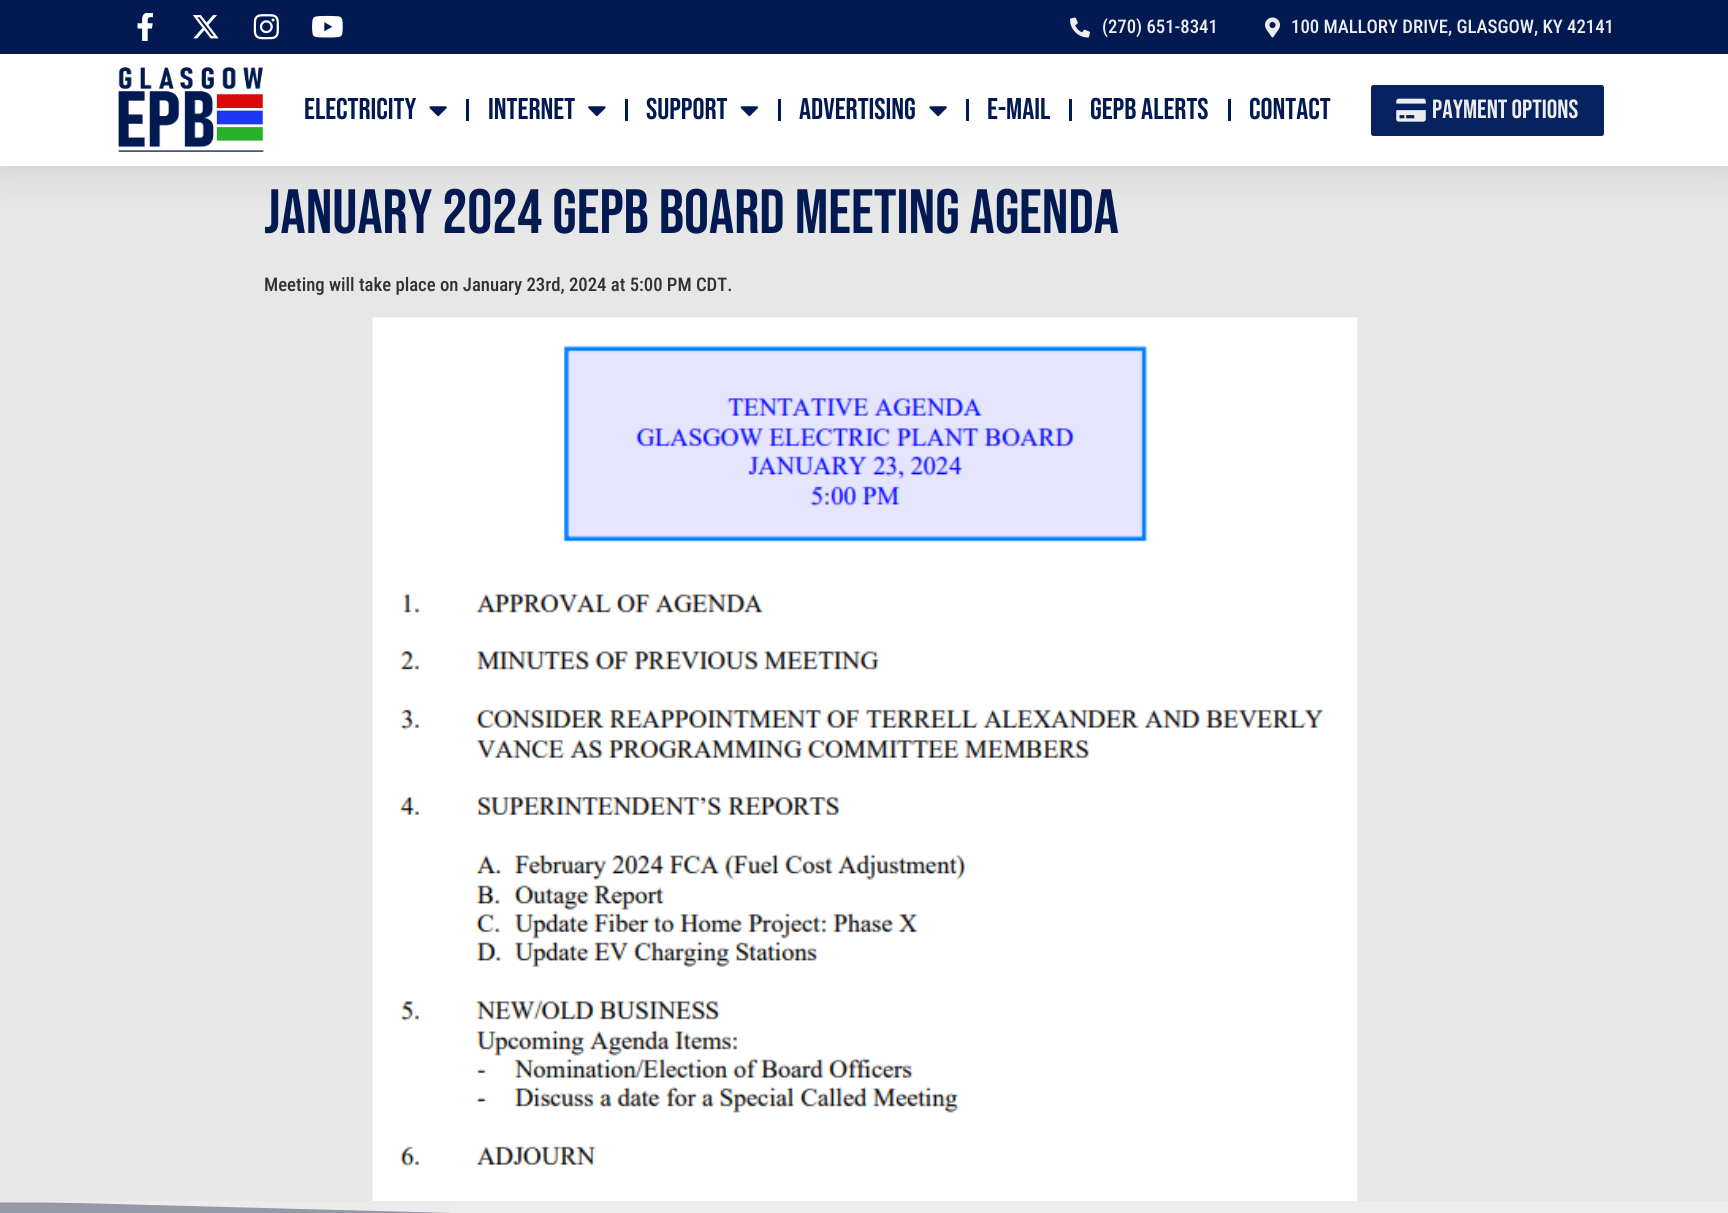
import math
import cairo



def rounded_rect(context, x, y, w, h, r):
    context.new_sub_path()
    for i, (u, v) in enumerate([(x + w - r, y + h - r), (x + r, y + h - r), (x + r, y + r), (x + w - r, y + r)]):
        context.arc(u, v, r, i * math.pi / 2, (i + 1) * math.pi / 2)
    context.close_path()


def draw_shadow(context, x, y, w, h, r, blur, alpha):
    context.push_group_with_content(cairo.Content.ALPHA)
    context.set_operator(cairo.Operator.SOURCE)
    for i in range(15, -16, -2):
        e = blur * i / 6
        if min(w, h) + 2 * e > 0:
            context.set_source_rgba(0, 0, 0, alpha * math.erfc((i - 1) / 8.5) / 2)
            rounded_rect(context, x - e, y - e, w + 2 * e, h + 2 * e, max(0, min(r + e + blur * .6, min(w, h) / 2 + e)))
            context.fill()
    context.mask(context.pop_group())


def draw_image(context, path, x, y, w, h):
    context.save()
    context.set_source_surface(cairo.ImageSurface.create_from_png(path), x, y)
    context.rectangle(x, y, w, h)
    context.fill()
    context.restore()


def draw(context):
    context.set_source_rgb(231 / 255, 231 / 255, 231 / 255)
    context.paint()
    context.set_source_rgb(0, 0, 0)
    draw_shadow(context, 0, 6, 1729, 167, 0, 19, 0.1)
    context.set_source_rgb(2 / 255, 26 / 255, 81 / 255)
    context.rectangle(0, 0, 1728, 54)
    context.fill()
    draw_image(context, "images/1.png", 137, 13, 16, 28)
    draw_image(context, "images/2.png", 192, 15, 27, 24)
    draw_image(context, "images/3.png", 253, 14, 26, 26)
    draw_image(context, "images/4.png", 312, 15, 31, 23)
    draw_image(context, "images/5.png", 1070, 17, 20, 21)
    draw_image(context, "images/6.png", 1265, 17, 15, 21)
    context.set_source_rgb(1, 1, 1)
    context.rectangle(0, 54, 1728, 112)
    context.fill()
    draw_image(context, "images/7.png", 118, 67, 146, 85)
    draw_image(context, "images/8.png", 429, 106, 18, 11)
    context.set_source_rgb(2 / 255, 26 / 255, 81 / 255)
    context.rectangle(466, 99, 3, 22)
    context.fill()
    draw_image(context, "images/9.png", 588, 106, 18, 11)
    context.rectangle(625, 99, 3, 22)
    context.fill()
    draw_image(context, "images/10.png", 740, 106, 19, 11)
    context.rectangle(778, 99, 3, 22)
    context.fill()
    draw_image(context, "images/8.png", 929, 106, 18, 11)
    context.rectangle(966, 99, 3, 22)
    context.fill()
    context.rectangle(1069, 99, 3, 22)
    context.fill()
    context.rectangle(1228, 99, 3, 22)
    context.fill()
    context.set_source_rgb(7 / 255, 34 / 255, 96 / 255)
    rounded_rect(context, 1371, 85, 233, 51, 2.5)
    context.fill()
    draw_image(context, "images/11.png", 1396, 98, 30, 24)
    draw_image(context, "images/12.png", 372, 317, 986, 884)
    draw_image(context, "images/13.png", 0, 1202, 452, 11)
    context.set_source_rgb(237 / 255, 237 / 255, 237 / 255)
    context.new_path()
    context.move_to(0, 1201)
    context.line_to(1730, 1201)
    context.line_to(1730, 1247)
    context.close_path()
    context.fill()
    context.set_source_rgba(237 / 255, 237 / 255, 237 / 255, 0.5)
    context.rectangle(0, 1201, 451, 12)
    context.fill()
    context.set_source_rgba(237 / 255, 237 / 255, 237 / 255, 0.25)
    context.new_path()
    context.move_to(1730, 1201)
    context.line_to(0, 1201)
    context.line_to(0, 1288)
    context.line_to(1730, 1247)
    context.close_path()
    context.fill()
    context.select_font_face("Roboto Condensed Medium")
    context.set_font_size(18.75)
    context.set_source_rgb(237 / 255, 237 / 255, 237 / 255)
    context.move_to(1102, 33)
    context.show_text("(270) 651-8341")
    context.move_to(1291, 33)
    context.show_text("100 MALLORY DRIVE, GLASGOW, KY 42141")
    context.select_font_face("Bebas Neue")
    context.set_font_size(30)
    context.set_source_rgb(2 / 255, 26 / 255, 81 / 255)
    context.move_to(304, 119)
    context.show_text("ELECTRICITY")
    context.move_to(488, 119)
    context.show_text("INTERNET")
    context.move_to(646, 119)
    context.show_text("SUPPORT")
    context.move_to(799, 119)
    context.show_text("ADVERTISING")
    context.move_to(987, 119)
    context.show_text("E-MAIL")
    context.move_to(1090, 119)
    context.show_text("GEPB ALERTS")
    context.move_to(1249, 119)
    context.show_text("CONTACT")
    context.set_font_size(26.25)
    context.set_source_rgb(237 / 255, 237 / 255, 237 / 255)
    context.move_to(1432, 118)
    context.show_text("PAYMENT OPTIONS")
    context.set_font_size(62.5)
    context.set_source_rgb(2 / 255, 26 / 255, 81 / 255)
    context.move_to(264, 233)
    context.show_text("January 2024 GEPB Board Meeting Agenda")
    context.select_font_face("Roboto Condensed Medium")
    context.set_font_size(18.75)
    context.set_source_rgb(53 / 255, 48 / 255, 48 / 255)
    context.move_to(264, 291)
    context.show_text("Meeting will take place on January 23rd, 2024 at 5:00 PM CDT.")


surface = cairo.ImageSurface(cairo.Format.RGB24, 1728, 1213)
context = cairo.Context(surface)
options = cairo.FontOptions()
options.set_hint_metrics(cairo.HintMetrics.OFF)
options.set_hint_style(cairo.HintStyle.NONE)
context.set_font_options(options)
context.set_miter_limit(4)
draw(context)
surface.write_to_png("out.png")
